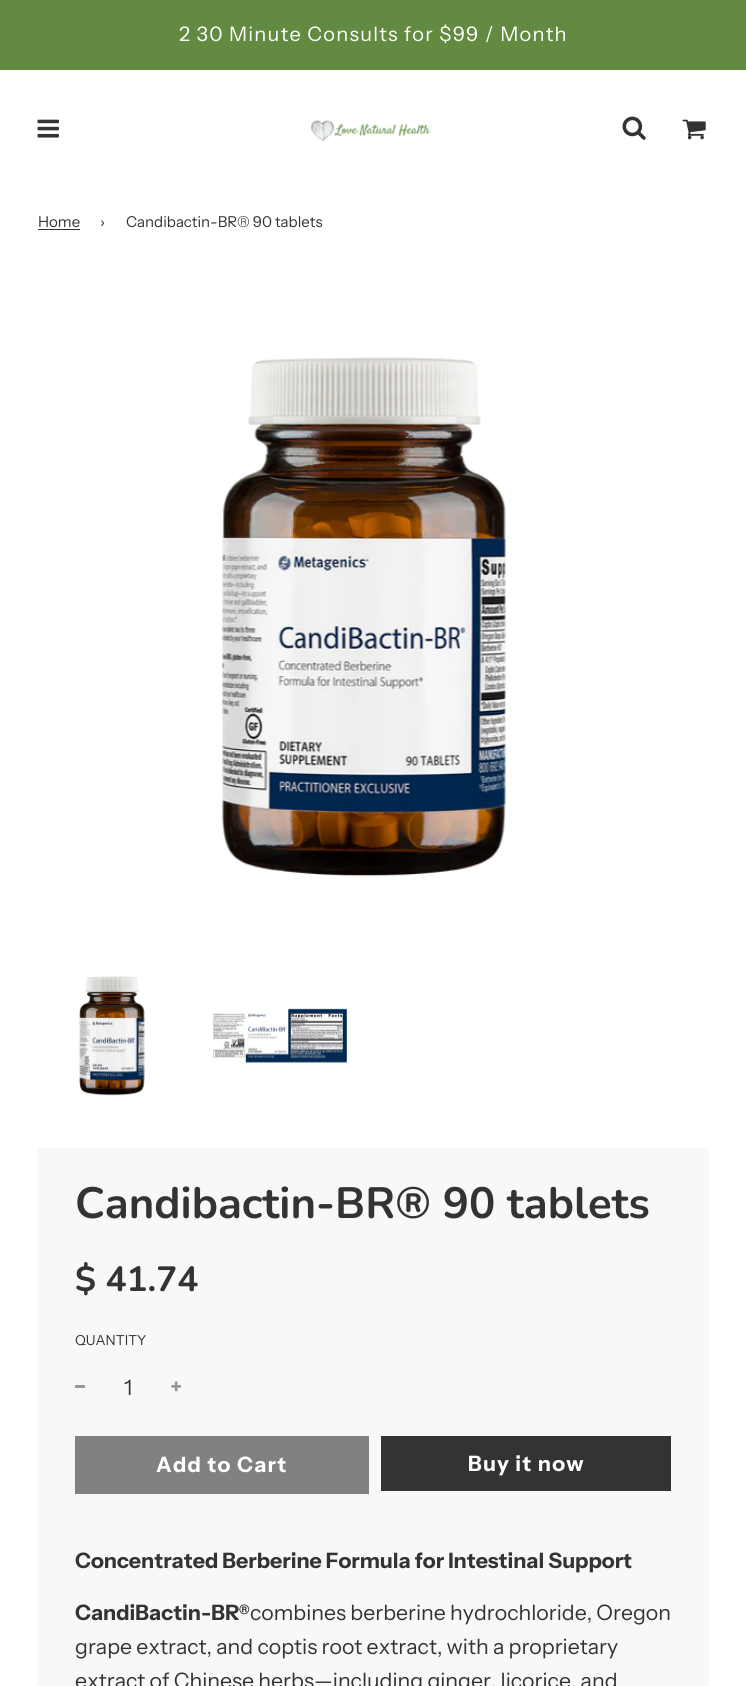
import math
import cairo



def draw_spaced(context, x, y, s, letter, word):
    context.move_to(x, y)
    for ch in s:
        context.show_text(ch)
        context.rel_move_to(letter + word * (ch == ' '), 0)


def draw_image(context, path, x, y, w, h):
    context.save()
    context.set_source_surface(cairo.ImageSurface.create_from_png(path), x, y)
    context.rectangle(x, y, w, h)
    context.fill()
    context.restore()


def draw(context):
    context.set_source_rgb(1, 1, 1)
    context.paint()
    context.set_source_rgb(99 / 255, 138 / 255, 65 / 255)
    context.rectangle(0, 0, 746, 70)
    context.fill()
    draw_image(context, "images/1.png", 37, 119, 22, 19)
    draw_image(context, "images/2.png", 310, 120, 121, 21)
    draw_image(context, "images/3.png", 622, 116, 24, 24)
    draw_image(context, "images/4.png", 682, 119, 24, 21)
    context.set_source_rgb(51 / 255, 51 / 255, 51 / 255)
    context.rectangle(38, 229, 42, 1)
    context.fill()
    draw_image(context, "images/5.png", 221, 357, 286, 520)
    draw_image(context, "images/6.png", 79, 976, 66, 120)
    draw_image(context, "images/7.png", 213, 1008, 136, 56)
    context.set_source_rgb(248 / 255, 248 / 255, 248 / 255)
    context.rectangle(38, 1148, 671, 538)
    context.fill()
    context.set_source_rgb(150 / 255, 150 / 255, 150 / 255)
    context.rectangle(75, 1385, 10, 3)
    context.fill()
    draw_image(context, "images/8.png", 171, 1381, 10, 11)
    context.set_source_rgb(129 / 255, 129 / 255, 129 / 255)
    context.rectangle(75, 1436, 294, 58)
    context.fill()
    context.set_source_rgb(51 / 255, 51 / 255, 51 / 255)
    context.rectangle(381, 1436, 290, 55)
    context.fill()
    context.select_font_face("Instrument Sans")
    context.set_font_size(20)
    context.set_source_rgb(1, 1, 1)
    draw_spaced(context, 179, 41, "2 30 Minute Consults for $99 / Month", 1.25, 0)
    context.set_font_size(15)
    context.set_source_rgb(51 / 255, 51 / 255, 51 / 255)
    context.move_to(38, 227)
    context.show_text("Home")
    context.move_to(100, 227)
    context.show_text("›")
    context.move_to(126, 227)
    context.show_text("Candibactin-BR® 90 tablets")
    context.select_font_face("Nunito", cairo.FontSlant.NORMAL, cairo.FontWeight.BOLD)
    context.set_font_size(43.75)
    context.move_to(75, 1218)
    context.show_text("Candibactin-BR® 90 tablets")
    context.set_font_size(35)
    context.move_to(75, 1291)
    context.show_text("$ 41.74")
    context.select_font_face("Instrument Sans")
    context.set_font_size(13.75)
    context.move_to(75, 1345)
    context.show_text("QUANTITY")
    context.set_font_size(21.25)
    context.move_to(124, 1395)
    context.show_text("1")
    context.select_font_face("Instrument Sans", cairo.FontSlant.NORMAL, cairo.FontWeight.BOLD)
    context.set_source_rgb(1, 1, 1)
    draw_spaced(context, 156, 1472, "Add to Cart", 1.25, 0)
    draw_spaced(context, 468, 1471, "Buy it now", 1.25, 0)
    context.set_source_rgb(51 / 255, 51 / 255, 51 / 255)
    context.move_to(75, 1568)
    context.show_text("Concentrated Berberine Formula for Intestinal Support")
    context.move_to(75, 1620)
    context.show_text("CandiBactin-BR")
    context.set_font_size(13)
    context.move_to(239, 1614)
    context.show_text("®")
    context.select_font_face("Instrument Sans")
    context.set_font_size(21.25)
    context.move_to(250, 1620)
    context.show_text("combines berberine hydrochloride, Oregon")
    context.move_to(75, 1654)
    context.show_text("grape extract, and coptis root extract, with a proprietary")
    context.move_to(75, 1688)
    context.show_text("extract of Chinese herbs—including ginger, licorice, and")


surface = cairo.ImageSurface(cairo.Format.RGB24, 746, 1686)
context = cairo.Context(surface)
options = cairo.FontOptions()
options.set_hint_metrics(cairo.HintMetrics.OFF)
options.set_hint_style(cairo.HintStyle.NONE)
context.set_font_options(options)
context.set_miter_limit(4)
draw(context)
surface.write_to_png("out.png")
